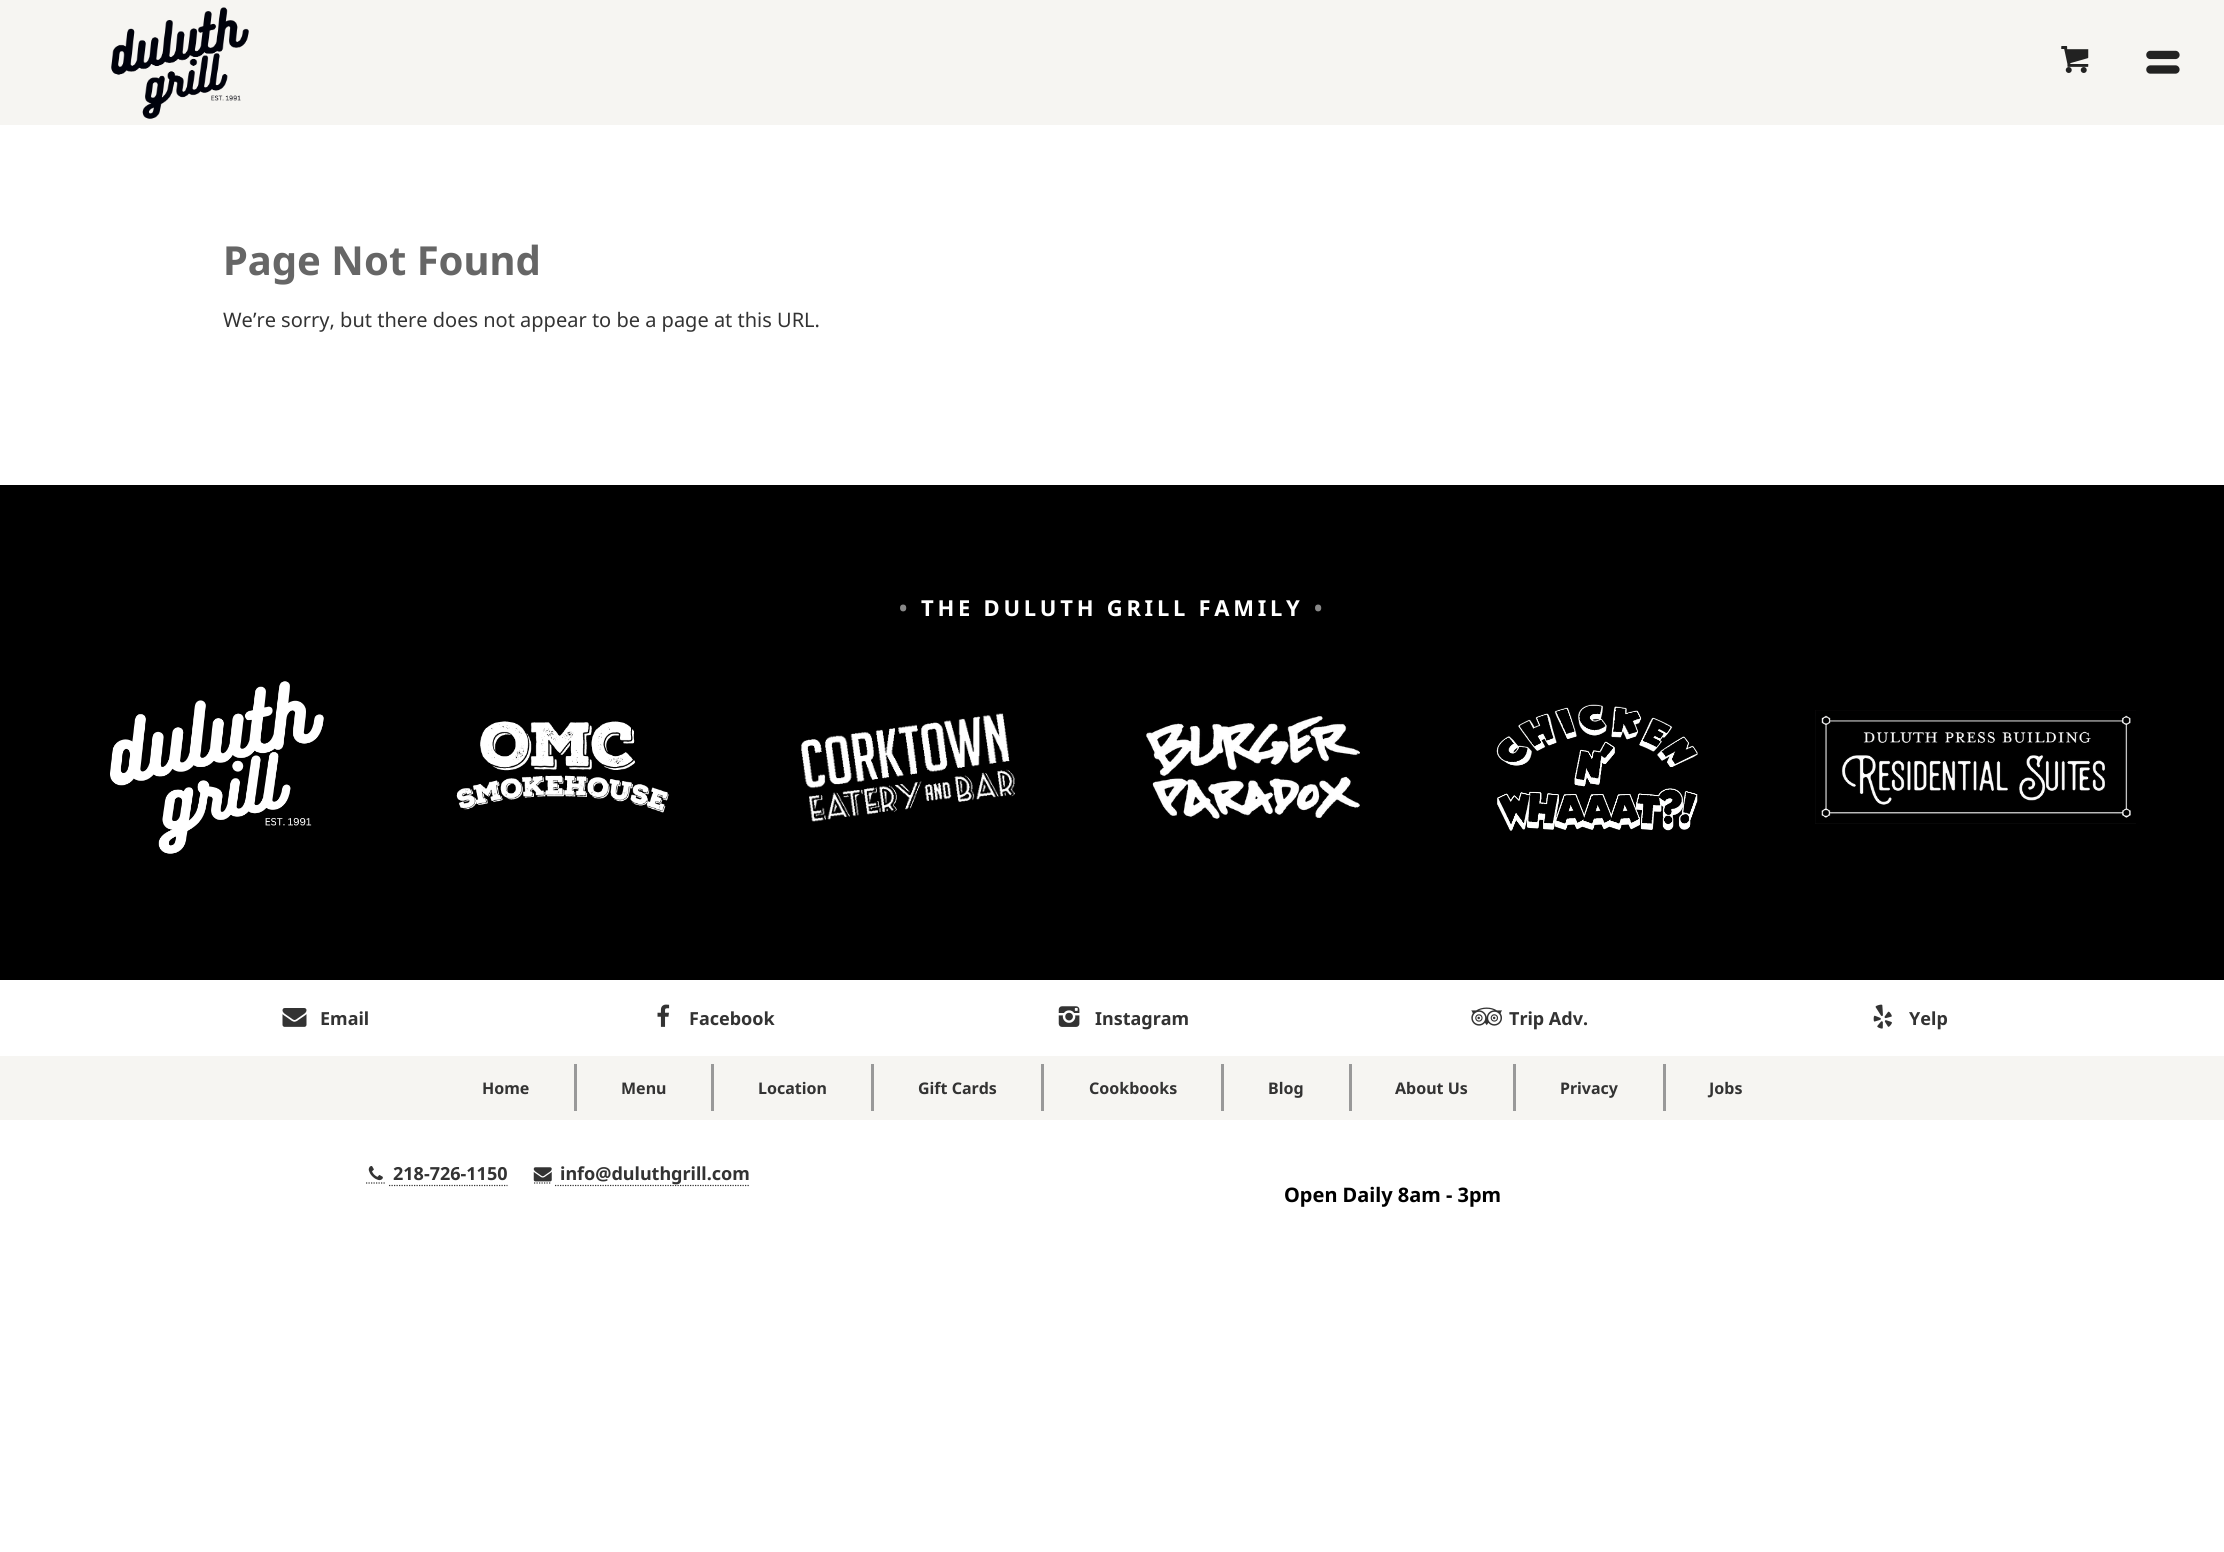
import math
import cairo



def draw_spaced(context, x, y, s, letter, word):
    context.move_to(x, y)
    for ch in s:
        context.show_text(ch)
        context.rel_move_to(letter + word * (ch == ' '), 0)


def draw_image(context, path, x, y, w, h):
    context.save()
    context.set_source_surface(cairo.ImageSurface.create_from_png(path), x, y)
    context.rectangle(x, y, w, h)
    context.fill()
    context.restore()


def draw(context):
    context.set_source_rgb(1, 1, 1)
    context.paint()
    context.set_source_rgb(246 / 255, 245 / 255, 242 / 255)
    context.rectangle(0, 0, 2224, 125)
    context.fill()
    draw_image(context, "images/1.png", 111, 7, 138, 112)
    draw_image(context, "images/2.png", 2061, 46, 28, 27)
    draw_image(context, "images/3.png", 2146, 50, 34, 24)
    context.set_source_rgb(0, 0, 0)
    context.rectangle(0, 485, 2224, 495)
    context.fill()
    draw_image(context, "images/4.png", 110, 681, 214, 173)
    draw_image(context, "images/5.png", 456, 721, 213, 92)
    draw_image(context, "images/6.png", 801, 713, 214, 109)
    draw_image(context, "images/7.png", 1146, 716, 214, 103)
    draw_image(context, "images/8.png", 1496, 704, 202, 127)
    draw_image(context, "images/9.png", 1815, 710, 321, 114)
    draw_image(context, "images/10.png", 282, 1008, 25, 19)
    draw_image(context, "images/11.png", 657, 1004, 13, 23)
    draw_image(context, "images/12.png", 1058, 1006, 22, 21)
    draw_image(context, "images/13.png", 1471, 1007, 31, 19)
    draw_image(context, "images/14.png", 1873, 1004, 19, 25)
    context.set_source_rgb(246 / 255, 245 / 255, 242 / 255)
    context.rectangle(0, 1056, 2224, 64)
    context.fill()
    context.set_source_rgb(153 / 255, 153 / 255, 153 / 255)
    context.rectangle(574, 1064, 3, 47)
    context.fill()
    context.rectangle(711, 1064, 3, 47)
    context.fill()
    context.rectangle(871, 1064, 3, 47)
    context.fill()
    context.rectangle(1041, 1064, 3, 47)
    context.fill()
    context.rectangle(1221, 1064, 3, 47)
    context.fill()
    context.rectangle(1349, 1064, 3, 47)
    context.fill()
    context.rectangle(1513, 1064, 3, 47)
    context.fill()
    context.rectangle(1663, 1064, 3, 47)
    context.fill()
    context.new_path()
    context.move_to(366, 1183)
    context.line_to(385, 1183)
    context.set_source_rgb(51 / 255, 51 / 255, 51 / 255)
    context.set_line_width(1.2)
    context.set_dash([1.25, 1.25])
    context.stroke()
    context.new_path()
    context.move_to(389, 1185.5)
    context.line_to(507.5, 1185.5)
    context.stroke()
    draw_image(context, "images/15.png", 368, 1166, 15, 15)
    context.new_path()
    context.move_to(534, 1183)
    context.line_to(551, 1183)
    context.stroke()
    context.new_path()
    context.move_to(555, 1185.5)
    context.line_to(750, 1185.5)
    context.stroke()
    draw_image(context, "images/16.png", 533, 1167, 19, 15)
    context.select_font_face("Noto Sans", cairo.FontSlant.NORMAL, cairo.FontWeight.BOLD)
    context.set_font_size(40)
    context.set_source_rgb(102 / 255, 102 / 255, 102 / 255)
    context.move_to(223, 275)
    context.show_text("Page Not Found")
    context.select_font_face("Noto Sans")
    context.set_font_size(20)
    context.set_source_rgb(51 / 255, 51 / 255, 51 / 255)
    context.move_to(223, 327)
    context.show_text("We’re sorry, but there does not appear to be a page at this URL.")
    context.select_font_face("Noto Sans", cairo.FontSlant.NORMAL, cairo.FontWeight.BOLD)
    context.set_font_size(22)
    context.set_source_rgb(136 / 255, 136 / 255, 136 / 255)
    draw_spaced(context, 899, 616, "•", 3.75, 0)
    context.set_source_rgb(1, 1, 1)
    draw_spaced(context, 921, 616, "THE DULUTH GRILL FAMILY", 3.75, 0)
    context.set_source_rgb(136 / 255, 136 / 255, 136 / 255)
    draw_spaced(context, 1314, 616, "•", 3.75, 0)
    context.set_font_size(18)
    context.set_source_rgb(51 / 255, 51 / 255, 51 / 255)
    context.move_to(320, 1025)
    context.show_text("Email")
    context.move_to(689, 1025)
    context.show_text("Facebook")
    context.move_to(1095, 1025)
    context.show_text("Instagram")
    context.move_to(1509, 1025)
    context.show_text("Trip Adv.")
    context.move_to(1909, 1025)
    context.show_text("Yelp")
    context.set_font_size(16)
    context.move_to(482, 1094)
    context.show_text("Home")
    context.move_to(621, 1094)
    context.show_text("Menu")
    context.move_to(758, 1094)
    context.show_text("Location")
    context.move_to(918, 1094)
    context.show_text("Gift Cards")
    context.move_to(1089, 1094)
    context.show_text("Cookbooks")
    context.move_to(1268, 1094)
    context.show_text("Blog")
    context.move_to(1395, 1094)
    context.show_text("About Us")
    context.move_to(1560, 1094)
    context.show_text("Privacy")
    context.move_to(1709, 1094)
    context.show_text("Jobs")
    context.set_font_size(18)
    context.move_to(393, 1180)
    context.show_text("218-726-1150")
    context.move_to(560, 1180)
    context.show_text("info@duluthgrill.com")
    context.set_font_size(20)
    context.set_source_rgb(0, 0, 0)
    context.move_to(1284, 1202)
    context.show_text("Open Daily 8am - 3pm")


surface = cairo.ImageSurface(cairo.Format.RGB24, 2224, 1552)
context = cairo.Context(surface)
options = cairo.FontOptions()
options.set_hint_metrics(cairo.HintMetrics.OFF)
options.set_hint_style(cairo.HintStyle.NONE)
context.set_font_options(options)
context.set_miter_limit(4)
draw(context)
surface.write_to_png("out.png")
